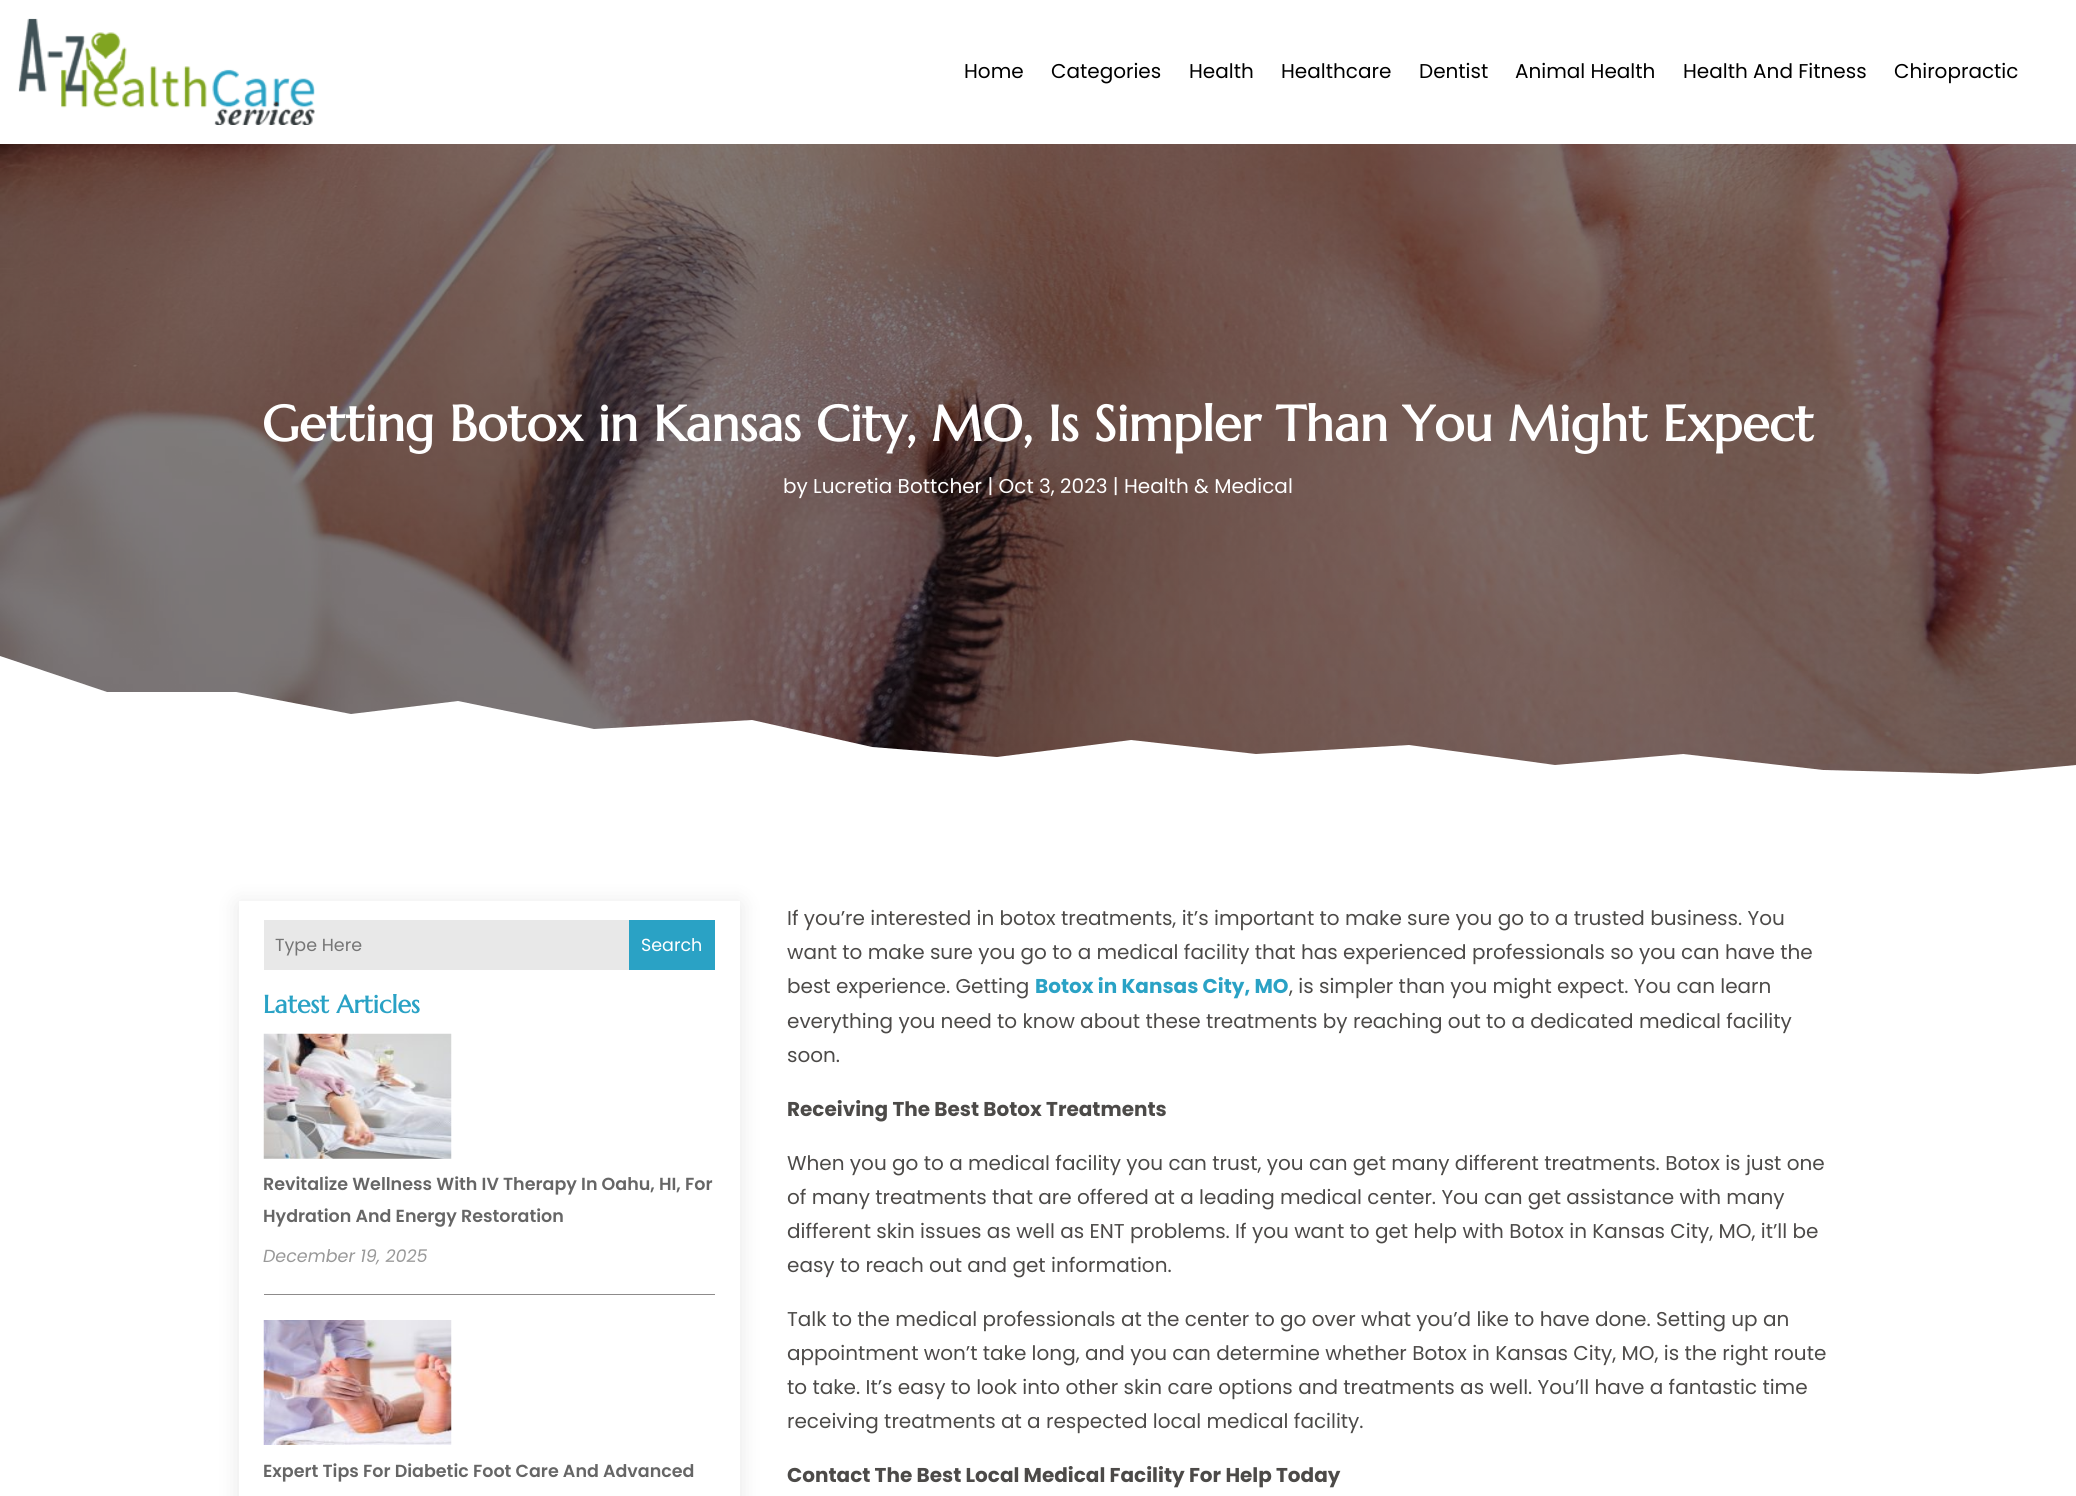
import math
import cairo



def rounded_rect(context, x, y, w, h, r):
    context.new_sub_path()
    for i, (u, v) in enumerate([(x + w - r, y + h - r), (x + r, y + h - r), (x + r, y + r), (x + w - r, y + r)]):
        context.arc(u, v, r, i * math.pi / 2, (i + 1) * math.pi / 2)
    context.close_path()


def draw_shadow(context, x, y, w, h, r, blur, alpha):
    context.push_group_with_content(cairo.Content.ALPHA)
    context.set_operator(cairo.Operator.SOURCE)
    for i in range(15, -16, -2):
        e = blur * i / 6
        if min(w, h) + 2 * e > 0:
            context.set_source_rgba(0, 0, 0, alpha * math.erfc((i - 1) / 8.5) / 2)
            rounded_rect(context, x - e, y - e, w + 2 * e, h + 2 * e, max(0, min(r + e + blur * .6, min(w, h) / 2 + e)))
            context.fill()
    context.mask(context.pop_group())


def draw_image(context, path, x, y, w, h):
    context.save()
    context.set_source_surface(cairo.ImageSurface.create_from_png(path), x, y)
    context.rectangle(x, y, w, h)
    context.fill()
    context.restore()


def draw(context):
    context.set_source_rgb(1, 1, 1)
    context.paint()
    draw_image(context, "images/1.png", 18, 18, 297, 107)
    draw_image(context, "images/2.png", 0, 144, 2076, 630)
    context.set_source_rgb(1, 1, 1)
    context.new_path()
    context.move_to(2076, 765)
    context.line_to(1978, 774)
    context.line_to(1823, 770)
    context.line_to(1683, 754)
    context.line_to(1555, 765)
    context.line_to(1409, 745)
    context.line_to(1256, 754)
    context.line_to(1131, 740)
    context.line_to(997, 757)
    context.line_to(872, 747)
    context.line_to(752, 720)
    context.line_to(594, 729)
    context.line_to(458, 701)
    context.line_to(351, 714)
    context.line_to(236, 692)
    context.line_to(107, 692)
    context.line_to(0, 656)
    context.line_to(0, 781)
    context.line_to(2076, 781)
    context.close_path()
    context.fill()
    context.set_source_rgb(0, 0, 0)
    draw_shadow(context, 239, 904, 501, 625, 0, 11, 0.1)
    context.set_source_rgb(1, 1, 1)
    context.rectangle(239, 901, 501, 595)
    context.fill()
    context.set_source_rgb(232 / 255, 232 / 255, 232 / 255)
    context.rectangle(264, 920, 365, 50)
    context.fill()
    context.set_source_rgb(42 / 255, 162 / 255, 197 / 255)
    context.rectangle(629, 920, 86, 50)
    context.fill()
    context.set_source_rgb(141 / 255, 139 / 255, 139 / 255)
    context.rectangle(264, 1294, 451, 1)
    context.fill()
    draw_image(context, "images/3.png", 263, 1033, 189, 126)
    draw_image(context, "images/4.png", 263, 1320, 189, 125)
    context.select_font_face("Poppins")
    context.set_font_size(20)
    context.set_source_rgb(0, 0, 0)
    context.move_to(964, 78)
    context.show_text("Home")
    context.move_to(1051, 78)
    context.show_text("Categories")
    context.move_to(1189, 78)
    context.show_text("Health")
    context.move_to(1281, 78)
    context.show_text("Healthcare")
    context.move_to(1419, 78)
    context.show_text("Dentist")
    context.move_to(1515, 78)
    context.show_text("Animal Health")
    context.move_to(1683, 78)
    context.show_text("Health And Fitness")
    context.move_to(1894, 78)
    context.show_text("Chiropractic")
    context.select_font_face("Marcellus", cairo.FontSlant.NORMAL, cairo.FontWeight.BOLD)
    context.set_font_size(50)
    context.set_source_rgb(1, 1, 1)
    context.move_to(262, 441)
    context.show_text("Getting Botox in Kansas City, MO, Is Simpler Than You Might Expect")
    context.select_font_face("Poppins")
    context.set_font_size(20)
    context.move_to(783, 493)
    context.show_text("by Lucretia Bottcher | Oct 3, 2023 | Health & Medical")
    context.set_font_size(17.5)
    context.set_source_rgb(117 / 255, 117 / 255, 117 / 255)
    context.move_to(275, 951)
    context.show_text("Type Here")
    context.set_source_rgb(1, 1, 1)
    context.move_to(641, 951)
    context.show_text("Search")
    context.select_font_face("Marcellus", cairo.FontSlant.NORMAL, cairo.FontWeight.BOLD)
    context.set_font_size(25)
    context.set_source_rgb(42 / 255, 162 / 255, 197 / 255)
    context.move_to(263, 1013)
    context.show_text("Latest Articles")
    context.select_font_face("Poppins SemiBold")
    context.set_font_size(17.5)
    context.set_source_rgb(102 / 255, 102 / 255, 102 / 255)
    context.move_to(263, 1190)
    context.show_text("Revitalize Wellness With IV Therapy In Oahu, HI, For")
    context.move_to(263, 1222)
    context.show_text("Hydration And Energy Restoration")
    context.select_font_face("Poppins", cairo.FontSlant.ITALIC)
    context.set_source_rgb(153 / 255, 153 / 255, 153 / 255)
    context.move_to(263, 1262)
    context.show_text("December 19, 2025")
    context.select_font_face("Poppins SemiBold")
    context.set_source_rgb(102 / 255, 102 / 255, 102 / 255)
    context.move_to(263, 1477)
    context.show_text("Expert Tips For Diabetic Foot Care And Advanced")
    context.select_font_face("Poppins")
    context.set_font_size(20)
    context.set_source_rgb(76 / 255, 74 / 255, 72 / 255)
    context.move_to(787, 925)
    context.show_text("If you’re interested in botox treatments, it’s important to make sure you go to a trusted business. You")
    context.move_to(787, 959)
    context.show_text("want to make sure you go to a medical facility that has experienced professionals so you can have the")
    context.move_to(787, 993)
    context.show_text("best experience. Getting")
    context.select_font_face("Poppins", cairo.FontSlant.NORMAL, cairo.FontWeight.BOLD)
    context.set_source_rgb(42 / 255, 162 / 255, 197 / 255)
    context.move_to(1035, 993)
    context.show_text("Botox in Kansas City, MO")
    context.select_font_face("Poppins")
    context.set_source_rgb(76 / 255, 74 / 255, 72 / 255)
    context.move_to(1289, 993)
    context.show_text(", is simpler than you might expect. You can learn")
    context.move_to(787, 1028)
    context.show_text("everything you need to know about these treatments by reaching out to a dedicated medical facility")
    context.move_to(787, 1062)
    context.show_text("soon.")
    context.select_font_face("Poppins", cairo.FontSlant.NORMAL, cairo.FontWeight.BOLD)
    context.move_to(787, 1116)
    context.show_text("Receiving The Best Botox Treatments")
    context.select_font_face("Poppins")
    context.move_to(787, 1170)
    context.show_text("When you go to a medical facility you can trust, you can get many different treatments. Botox is just one")
    context.move_to(787, 1204)
    context.show_text("of many treatments that are offered at a leading medical center. You can get assistance with many")
    context.move_to(787, 1238)
    context.show_text("different skin issues as well as ENT problems. If you want to get help with Botox in Kansas City, MO, it’ll be")
    context.move_to(787, 1272)
    context.show_text("easy to reach out and get information.")
    context.move_to(787, 1326)
    context.show_text("Talk to the medical professionals at the center to go over what you’d like to have done. Setting up an")
    context.move_to(787, 1360)
    context.show_text("appointment won’t take long, and you can determine whether Botox in Kansas City, MO, is the right route")
    context.move_to(787, 1394)
    context.show_text("to take. It’s easy to look into other skin care options and treatments as well. You’ll have a fantastic time")
    context.move_to(787, 1428)
    context.show_text("receiving treatments at a respected local medical facility.")
    context.select_font_face("Poppins", cairo.FontSlant.NORMAL, cairo.FontWeight.BOLD)
    context.move_to(787, 1482)
    context.show_text("Contact The Best Local Medical Facility For Help Today")


surface = cairo.ImageSurface(cairo.Format.RGB24, 2076, 1496)
context = cairo.Context(surface)
options = cairo.FontOptions()
options.set_hint_metrics(cairo.HintMetrics.OFF)
options.set_hint_style(cairo.HintStyle.NONE)
context.set_font_options(options)
context.set_miter_limit(4)
draw(context)
surface.write_to_png("out.png")
